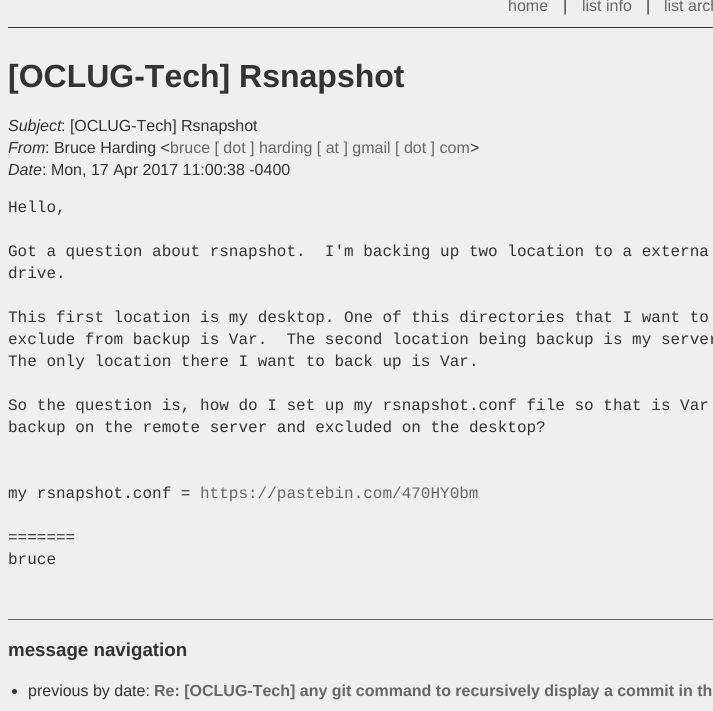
import math
import cairo



def draw(context):
    context.set_source_rgb(239 / 255, 239 / 255, 239 / 255)
    context.paint()
    context.set_source_rgb(51 / 255, 51 / 255, 51 / 255)
    context.rectangle(8, 27, 705, 1)
    context.fill()
    context.set_source_rgb(102 / 255, 102 / 255, 102 / 255)
    context.rectangle(8, 619, 705, 1)
    context.fill()
    context.set_source_rgb(51 / 255, 51 / 255, 51 / 255)
    context.arc(14.5, 691.5, 2.5, 0, 2 * math.pi)
    context.fill()
    context.select_font_face("Liberation Sans")
    context.set_font_size(16)
    context.set_source_rgb(102 / 255, 102 / 255, 102 / 255)
    context.move_to(508, 11)
    context.show_text("home")
    context.set_source_rgb(51 / 255, 51 / 255, 51 / 255)
    context.move_to(563, 11)
    context.show_text("|")
    context.set_source_rgb(102 / 255, 102 / 255, 102 / 255)
    context.move_to(582, 11)
    context.show_text("list info")
    context.set_source_rgb(51 / 255, 51 / 255, 51 / 255)
    context.move_to(646, 11)
    context.show_text("|")
    context.set_source_rgb(102 / 255, 102 / 255, 102 / 255)
    context.move_to(664, 11)
    context.show_text("list arch")
    context.select_font_face("Liberation Sans", cairo.FontSlant.NORMAL, cairo.FontWeight.BOLD)
    context.set_font_size(32)
    context.set_source_rgb(51 / 255, 51 / 255, 51 / 255)
    context.move_to(8, 87)
    context.show_text("[OCLUG-Tech] Rsnapshot")
    context.select_font_face("Liberation Sans", cairo.FontSlant.ITALIC)
    context.set_font_size(16)
    context.move_to(8, 131)
    context.show_text("Subject")
    context.select_font_face("Liberation Sans")
    context.move_to(61, 131)
    context.show_text(": [OCLUG-Tech] Rsnapshot")
    context.select_font_face("Liberation Sans", cairo.FontSlant.ITALIC)
    context.move_to(8, 153)
    context.show_text("From")
    context.select_font_face("Liberation Sans")
    context.move_to(45, 153)
    context.show_text(": Bruce Harding <")
    context.set_source_rgb(102 / 255, 102 / 255, 102 / 255)
    context.move_to(170, 153)
    context.show_text("bruce [ dot ] harding [ at ] gmail [ dot ] com")
    context.set_source_rgb(51 / 255, 51 / 255, 51 / 255)
    context.move_to(470, 153)
    context.show_text(">")
    context.select_font_face("Liberation Sans", cairo.FontSlant.ITALIC)
    context.move_to(8, 175)
    context.show_text("Date")
    context.select_font_face("Liberation Sans")
    context.move_to(42, 175)
    context.show_text(": Mon, 17 Apr 2017 11:00:38 -0400")
    context.select_font_face("Liberation Mono")
    context.move_to(8, 212)
    context.show_text("Hello,")
    context.move_to(8, 256)
    context.show_text("Got a question about rsnapshot.  I'm backing up two location to a externa")
    context.move_to(8, 278)
    context.show_text("drive.")
    context.move_to(8, 322)
    context.show_text("This first location is my desktop. One of this directories that I want to")
    context.move_to(8, 344)
    context.show_text("exclude from backup is Var.  The second location being backup is my server")
    context.move_to(8, 366)
    context.show_text("The only location there I want to back up is Var.")
    context.move_to(8, 410)
    context.show_text("So the question is, how do I set up my rsnapshot.conf file so that is Var")
    context.move_to(8, 432)
    context.show_text("backup on the remote server and excluded on the desktop?")
    context.move_to(8, 498)
    context.show_text("my rsnapshot.conf =")
    context.set_source_rgb(102 / 255, 102 / 255, 102 / 255)
    context.move_to(200, 498)
    context.show_text("https://pastebin.com/470HY0bm")
    context.set_source_rgb(51 / 255, 51 / 255, 51 / 255)
    context.move_to(8, 542)
    context.show_text("=======")
    context.move_to(8, 564)
    context.show_text("bruce")
    context.select_font_face("Liberation Sans", cairo.FontSlant.NORMAL, cairo.FontWeight.BOLD)
    context.set_font_size(18.75)
    context.move_to(8, 656)
    context.show_text("message navigation")
    context.select_font_face("Liberation Sans")
    context.set_font_size(16)
    context.move_to(28, 696)
    context.show_text("previous by date:")
    context.select_font_face("Liberation Sans", cairo.FontSlant.NORMAL, cairo.FontWeight.BOLD)
    context.set_source_rgb(102 / 255, 102 / 255, 102 / 255)
    context.move_to(154, 696)
    context.show_text("Re: [OCLUG-Tech] any git command to recursively display a commit in th")


surface = cairo.ImageSurface(cairo.Format.RGB24, 713, 711)
context = cairo.Context(surface)
options = cairo.FontOptions()
options.set_hint_metrics(cairo.HintMetrics.OFF)
options.set_hint_style(cairo.HintStyle.NONE)
context.set_font_options(options)
context.set_miter_limit(4)
draw(context)
surface.write_to_png("out.png")
